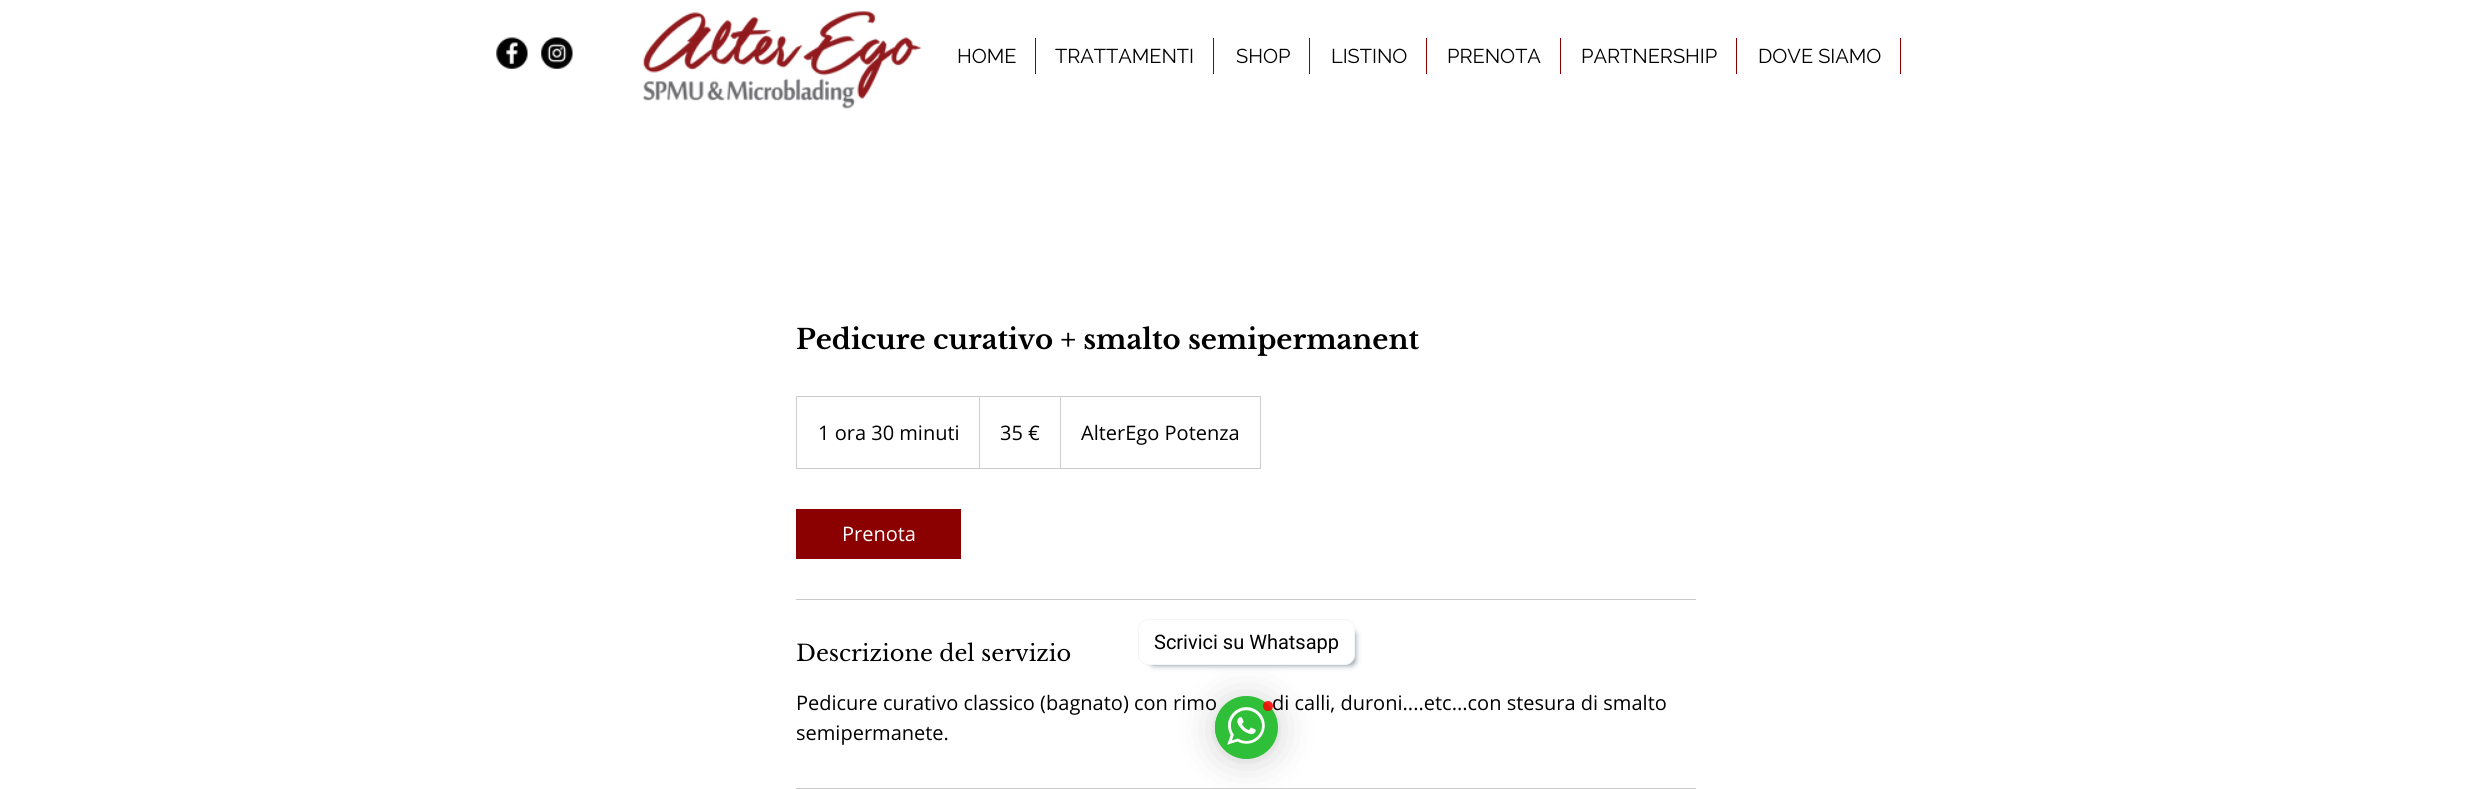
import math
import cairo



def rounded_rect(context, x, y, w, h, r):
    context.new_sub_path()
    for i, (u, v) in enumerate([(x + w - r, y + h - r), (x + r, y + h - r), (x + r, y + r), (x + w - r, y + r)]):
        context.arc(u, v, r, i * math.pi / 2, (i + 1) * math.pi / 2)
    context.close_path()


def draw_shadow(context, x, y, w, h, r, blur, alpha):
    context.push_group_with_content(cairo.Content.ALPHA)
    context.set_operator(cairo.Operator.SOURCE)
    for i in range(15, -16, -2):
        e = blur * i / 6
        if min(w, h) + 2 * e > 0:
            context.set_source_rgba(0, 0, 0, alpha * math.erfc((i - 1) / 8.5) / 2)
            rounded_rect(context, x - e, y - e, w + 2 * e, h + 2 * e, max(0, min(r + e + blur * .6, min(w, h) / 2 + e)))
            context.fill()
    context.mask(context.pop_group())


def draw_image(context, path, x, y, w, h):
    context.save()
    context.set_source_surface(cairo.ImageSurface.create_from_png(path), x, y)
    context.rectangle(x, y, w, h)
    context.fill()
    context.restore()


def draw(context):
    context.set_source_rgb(1, 1, 1)
    context.paint()
    context.save()
    context.set_fill_rule(cairo.FillRule.EVEN_ODD)
    context.new_path()
    context.move_to(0, 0)
    context.line_to(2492, 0)
    context.line_to(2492, 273)
    context.line_to(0, 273)
    context.close_path()
    context.move_to(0, 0)
    context.line_to(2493, 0)
    context.line_to(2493, 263)
    context.line_to(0, 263)
    context.close_path()
    context.clip()
    context.set_source_rgb(0, 0, 0)
    draw_shadow(context, 0, 0, 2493, 263, 0, 3, 0.7)
    context.restore()
    context.set_source_rgba(1, 1, 1, 0.6)
    context.rectangle(0, 262, 2492, 1)
    context.fill()
    draw_image(context, "images/1.png", 496, 37, 32, 32)
    draw_image(context, "images/2.png", 541, 37, 32, 32)
    draw_image(context, "images/3.png", 642, 11, 279, 98)
    context.set_source_rgb(139 / 255, 0, 0)
    context.rectangle(1035, 38, 1, 36)
    context.fill()
    context.rectangle(1213, 38, 1, 36)
    context.fill()
    context.rectangle(1309, 38, 1, 36)
    context.fill()
    context.rectangle(1426, 38, 1, 36)
    context.fill()
    context.rectangle(1560, 38, 1, 36)
    context.fill()
    context.rectangle(1736, 38, 1, 36)
    context.fill()
    context.rectangle(1900, 38, 1, 36)
    context.fill()
    context.set_source_rgb(1, 1, 1)
    context.rectangle(0, 263, 2492, 7)
    context.fill()
    context.rectangle(796.5, 396.5, 464, 72)
    context.set_source_rgb(204 / 255, 204 / 255, 204 / 255)
    context.set_line_width(1)
    context.stroke()
    context.new_path()
    context.move_to(979, 468)
    context.line_to(979, 396)
    context.line_to(980, 398)
    context.line_to(980, 468)
    context.close_path()
    context.fill()
    context.new_path()
    context.move_to(1060, 468)
    context.line_to(1060, 396)
    context.line_to(1061, 398)
    context.line_to(1061, 468)
    context.close_path()
    context.fill()
    context.set_source_rgb(139 / 255, 0, 0)
    context.rectangle(796, 509, 165, 50)
    context.fill()
    context.set_source_rgb(204 / 255, 204 / 255, 204 / 255)
    context.rectangle(796, 599, 900, 1)
    context.fill()
    context.rectangle(796, 788, 900, 1)
    context.fill()
    context.set_source_rgb(34 / 255, 60 / 255, 80 / 255)
    draw_shadow(context, 1150, 631, 205, 34, 4, 3, 0.6)
    context.set_source_rgb(0, 0, 0)
    draw_shadow(context, 1215, 699, 63, 62, 31, 20, 0.16)
    context.set_source_rgb(1, 1, 1)
    rounded_rect(context, 1138.5, 619.5, 216, 45, 9.5)
    context.fill_preserve()
    context.set_source_rgb(245 / 255, 245 / 255, 245 / 255)
    context.stroke()
    context.set_source_rgb(0, 0, 0)
    draw_shadow(context, 1215, 698, 63, 62, 31, 4, 0.06)
    context.select_font_face("Raleway")
    context.set_font_size(20)
    context.set_source_rgb(0, 0, 0)
    context.move_to(957, 63)
    context.show_text("HOME")
    context.move_to(1055, 63)
    context.show_text("TRATTAMENTI")
    context.move_to(1236, 63)
    context.show_text("SHOP")
    context.move_to(1331, 63)
    context.show_text("LISTINO")
    context.move_to(1447, 63)
    context.show_text("PRENOTA")
    context.move_to(1581, 63)
    context.show_text("PARTNERSHIP")
    context.move_to(1758, 63)
    context.show_text("DOVE SIAMO")
    context.select_font_face("Libre Baskerville", cairo.FontSlant.NORMAL, cairo.FontWeight.BOLD)
    context.set_font_size(27.5)
    context.move_to(796, 349)
    context.show_text("Pedicure curativo + smalto semipermanent")
    context.select_font_face("Open Sans")
    context.set_font_size(20)
    context.move_to(818, 440)
    context.show_text("1 ora 30 minuti")
    context.move_to(1000, 440)
    context.show_text("35 €")
    context.move_to(1081, 440)
    context.show_text("AlterEgo Potenza")
    context.set_source_rgb(1, 1, 1)
    context.move_to(842, 541)
    context.show_text("Prenota")
    context.select_font_face("Libre Baskerville")
    context.set_font_size(22.5)
    context.set_source_rgb(0, 0, 0)
    context.move_to(796, 661)
    context.show_text("Descrizione del servizio")
    context.select_font_face("Open Sans")
    context.set_font_size(20)
    context.move_to(796, 710)
    context.show_text("Pedicure curativo classico (bagnato) con rimo")
    context.move_to(1272, 710)
    context.show_text("di calli, duroni....etc...con stesura di smalto")
    context.move_to(796, 740)
    context.show_text("semipermanete.")
    context.select_font_face("Roboto")
    context.move_to(1154, 649)
    context.show_text("Scrivici su Whatsapp")
    context.set_source_rgb(48 / 255, 191 / 255, 57 / 255)
    context.new_path()
    context.arc(1246.5, 727.5, 31.5, 0, 2 * math.pi)
    context.fill()
    draw_image(context, "images/4.png", 1215, 696, 50, 63)
    context.set_source_rgba(1, 0, 0, 0.85)
    context.arc(1268, 706, 5, 0, 2 * math.pi)
    context.fill()


surface = cairo.ImageSurface(cairo.Format.RGB24, 2492, 789)
context = cairo.Context(surface)
options = cairo.FontOptions()
options.set_hint_metrics(cairo.HintMetrics.OFF)
options.set_hint_style(cairo.HintStyle.NONE)
context.set_font_options(options)
context.set_miter_limit(4)
draw(context)
surface.write_to_png("out.png")
